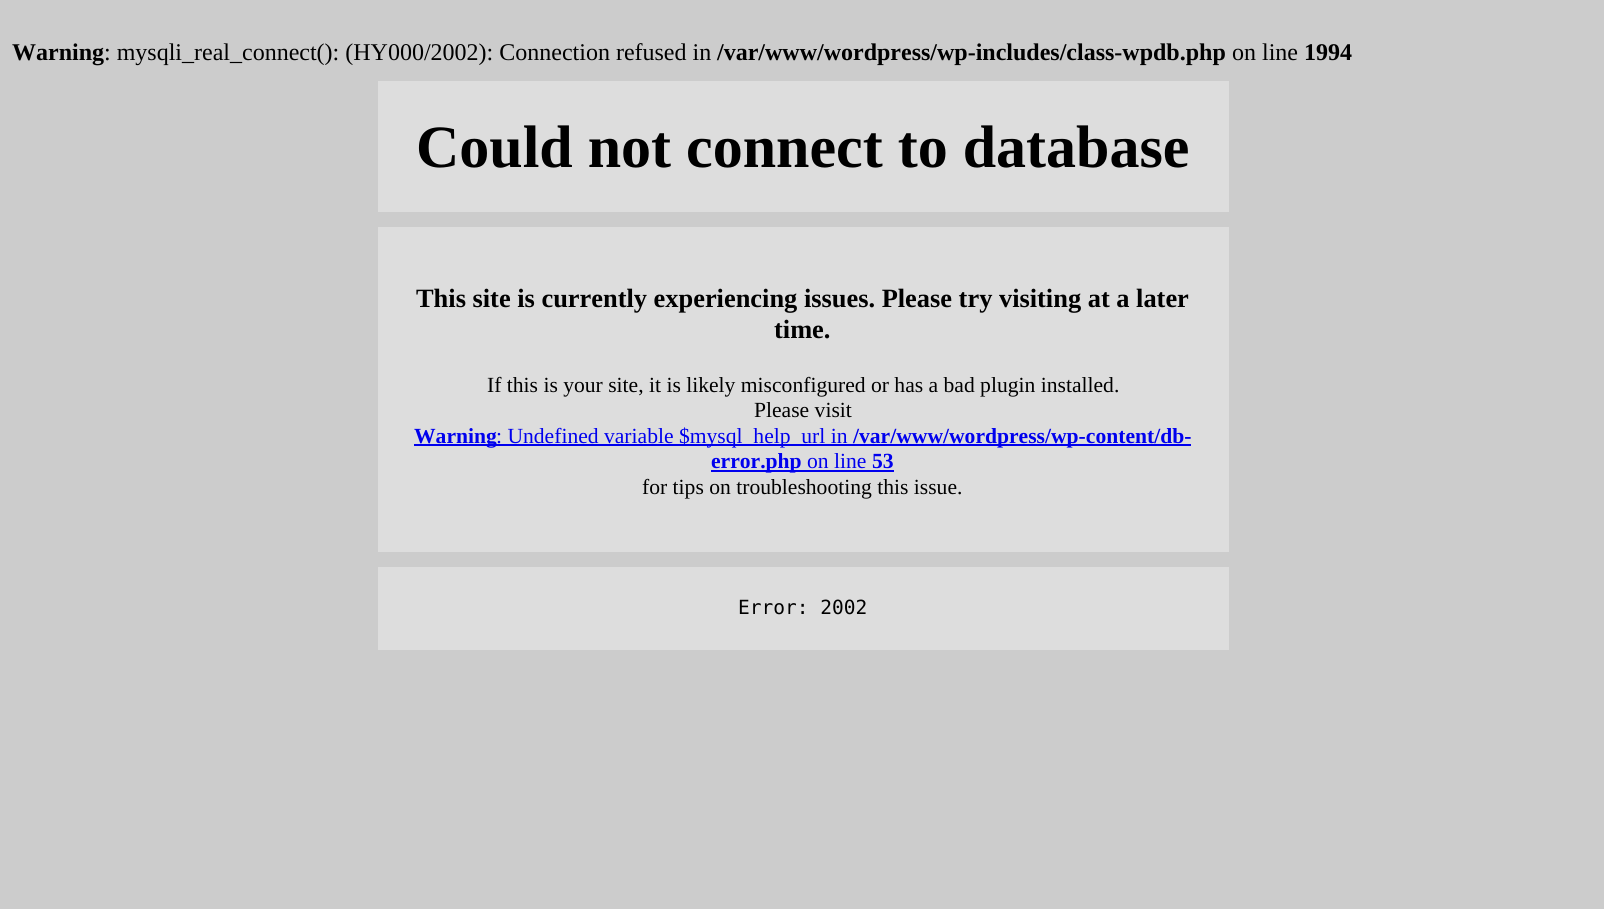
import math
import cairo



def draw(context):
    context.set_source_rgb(204 / 255, 204 / 255, 204 / 255)
    context.paint()
    context.set_source_rgb(221 / 255, 221 / 255, 221 / 255)
    context.rectangle(378, 81, 851, 131)
    context.fill()
    context.rectangle(378, 227, 851, 325)
    context.fill()
    context.set_source_rgb(0, 0, 238 / 255)
    context.rectangle(414, 444, 777, 2)
    context.fill()
    context.rectangle(711, 470, 183, 2)
    context.fill()
    context.set_source_rgb(221 / 255, 221 / 255, 221 / 255)
    context.rectangle(378, 567, 851, 83)
    context.fill()
    context.select_font_face("Liberation Serif", cairo.FontSlant.NORMAL, cairo.FontWeight.BOLD)
    context.set_font_size(24)
    context.set_source_rgb(0, 0, 0)
    context.move_to(12, 60)
    context.show_text("Warning")
    context.select_font_face("Liberation Serif")
    context.move_to(104, 60)
    context.show_text(": mysqli_real_connect(): (HY000/2002): Connection refused in")
    context.select_font_face("Liberation Serif", cairo.FontSlant.NORMAL, cairo.FontWeight.BOLD)
    context.move_to(717, 60)
    context.show_text("/var/www/wordpress/wp-includes/class-wpdb.php")
    context.select_font_face("Liberation Serif")
    context.move_to(1232, 60)
    context.show_text("on line")
    context.select_font_face("Liberation Serif", cairo.FontSlant.NORMAL, cairo.FontWeight.BOLD)
    context.move_to(1304, 60)
    context.show_text("1994")
    context.set_font_size(60)
    context.move_to(416, 167)
    context.show_text("Could not connect to database")
    context.set_font_size(26.4)
    context.move_to(416, 307)
    context.show_text("This site is currently experiencing issues. Please try visiting at a later")
    context.move_to(774, 338)
    context.show_text("time.")
    context.select_font_face("Liberation Serif")
    context.set_font_size(21.6)
    context.move_to(487, 392)
    context.show_text("If this is your site, it is likely misconfigured or has a bad plugin installed.")
    context.move_to(754, 417)
    context.show_text("Please visit")
    context.select_font_face("Liberation Serif", cairo.FontSlant.NORMAL, cairo.FontWeight.BOLD)
    context.set_source_rgb(0, 0, 238 / 255)
    context.move_to(414, 443)
    context.show_text("Warning")
    context.select_font_face("Liberation Serif")
    context.move_to(496, 443)
    context.show_text(": Undefined variable $mysql_help_url in")
    context.select_font_face("Liberation Serif", cairo.FontSlant.NORMAL, cairo.FontWeight.BOLD)
    context.move_to(853, 443)
    context.show_text("/var/www/wordpress/wp-content/db-")
    context.move_to(711, 468)
    context.show_text("error.php")
    context.select_font_face("Liberation Serif")
    context.move_to(807, 468)
    context.show_text("on line")
    context.select_font_face("Liberation Serif", cairo.FontSlant.NORMAL, cairo.FontWeight.BOLD)
    context.move_to(872, 468)
    context.show_text("53")
    context.select_font_face("Liberation Serif")
    context.set_source_rgb(0, 0, 0)
    context.move_to(642, 494)
    context.show_text("for tips on troubleshooting this issue.")
    context.select_font_face("DejaVu Sans Mono")
    context.set_font_size(19.5)
    context.move_to(738, 614)
    context.show_text("Error: 2002")


surface = cairo.ImageSurface(cairo.Format.RGB24, 1604, 909)
context = cairo.Context(surface)
options = cairo.FontOptions()
options.set_hint_metrics(cairo.HintMetrics.OFF)
options.set_hint_style(cairo.HintStyle.NONE)
context.set_font_options(options)
context.set_miter_limit(4)
draw(context)
surface.write_to_png("out.png")
